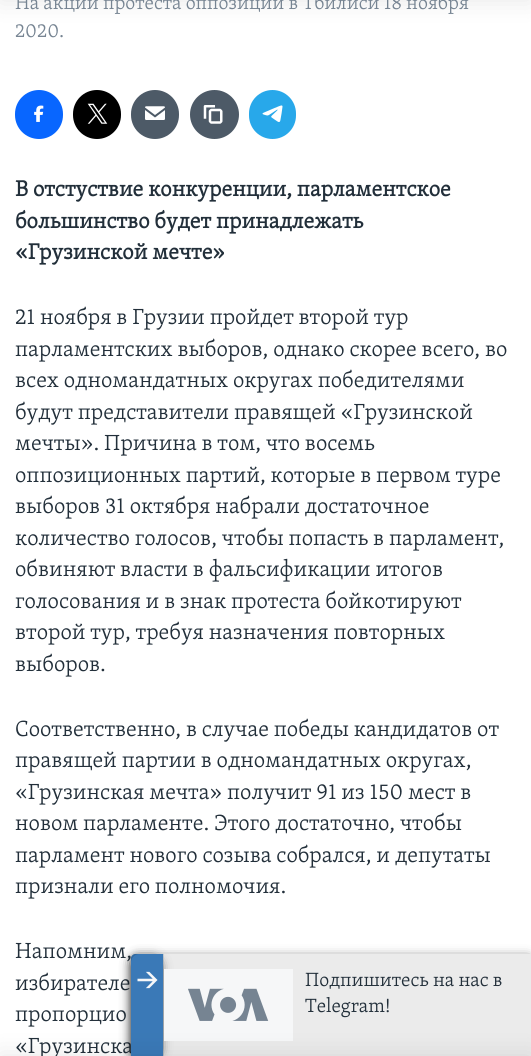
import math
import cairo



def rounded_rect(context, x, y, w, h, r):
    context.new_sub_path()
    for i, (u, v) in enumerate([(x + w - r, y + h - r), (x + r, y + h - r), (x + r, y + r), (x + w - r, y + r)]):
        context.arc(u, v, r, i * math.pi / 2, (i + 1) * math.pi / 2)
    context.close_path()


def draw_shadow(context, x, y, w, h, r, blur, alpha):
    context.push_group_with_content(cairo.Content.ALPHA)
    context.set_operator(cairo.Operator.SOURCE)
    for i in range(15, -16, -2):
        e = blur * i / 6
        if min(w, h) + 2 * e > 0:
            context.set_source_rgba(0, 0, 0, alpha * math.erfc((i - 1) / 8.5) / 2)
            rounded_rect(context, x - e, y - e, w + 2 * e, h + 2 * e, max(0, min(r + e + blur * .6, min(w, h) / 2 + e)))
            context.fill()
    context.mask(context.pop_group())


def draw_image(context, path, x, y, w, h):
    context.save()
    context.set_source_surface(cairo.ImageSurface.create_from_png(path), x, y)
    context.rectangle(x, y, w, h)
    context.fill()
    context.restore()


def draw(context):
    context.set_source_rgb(1, 1, 1)
    context.paint()
    context.set_source_rgb(0, 0, 0)
    draw_shadow(context, 0, -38, 531, 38, 0, 12.5, 0.1)
    context.set_source_rgb(8 / 255, 102 / 255, 1)
    rounded_rect(context, 15, 90, 48, 49, 24)
    context.fill()
    draw_image(context, "images/1.png", 34, 105, 10, 17)
    context.set_source_rgb(0, 0, 0)
    rounded_rect(context, 73, 90, 48, 49, 24)
    context.fill()
    draw_image(context, "images/2.png", 87, 103, 21, 21)
    context.set_source_rgb(77 / 255, 90 / 255, 103 / 255)
    rounded_rect(context, 131, 90, 48, 49, 24)
    context.fill()
    draw_image(context, "images/3.png", 145, 106, 20, 14)
    context.arc(214.5, 114.5, 24.5, 0, 2 * math.pi)
    context.fill()
    draw_image(context, "images/4.png", 203, 105, 20, 19)
    context.set_source_rgb(40 / 255, 168 / 255, 234 / 255)
    rounded_rect(context, 249, 90, 47, 49, 23.5)
    context.fill()
    draw_image(context, "images/5.png", 262, 105, 21, 17)
    context.set_source_rgb(0, 0, 0)
    draw_shadow(context, 134, 959, 395, 97, 1, 6, 0.85)
    context.select_font_face("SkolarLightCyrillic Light")
    context.set_font_size(19.7)
    context.set_source_rgb(118 / 255, 132 / 255, 146 / 255)
    context.move_to(15, 9)
    context.show_text("На акции протеста оппозиции в Тбилиси 18 ноября")
    context.move_to(15, 37)
    context.show_text("2020.")
    context.select_font_face("SkolarLightCyrillic", cairo.FontSlant.NORMAL, cairo.FontWeight.BOLD)
    context.set_font_size(22.5)
    context.set_source_rgb(34 / 255, 47 / 255, 58 / 255)
    context.move_to(15, 196)
    context.show_text("В отстуствие конкуренции, парламентское")
    context.move_to(15, 228)
    context.show_text("большинство будет принадлежать")
    context.move_to(15, 259)
    context.show_text("«Грузинской мечте»")
    context.select_font_face("SkolarLightCyrillic Light")
    context.move_to(15, 324)
    context.show_text("21 ноября в Грузии пройдет второй тур")
    context.move_to(15, 356)
    context.show_text("парламентских выборов, однако скорее всего, во")
    context.move_to(15, 387)
    context.show_text("всех одномандатных округах победителями")
    context.move_to(15, 419)
    context.show_text("будут представители правящей «Грузинской")
    context.move_to(15, 450)
    context.show_text("мечты». Причина в том, что восемь")
    context.move_to(15, 482)
    context.show_text("оппозиционных партий, которые в первом туре")
    context.move_to(15, 513)
    context.show_text("выборов 31 октября набрали достаточное")
    context.move_to(15, 545)
    context.show_text("количество голосов, чтобы попасть в парламент,")
    context.move_to(15, 576)
    context.show_text("обвиняют власти в фальсификации итогов")
    context.move_to(15, 608)
    context.show_text("голосования и в знак протеста бойкотируют")
    context.move_to(15, 639)
    context.show_text("второй тур, требуя назначения повторных")
    context.move_to(15, 671)
    context.show_text("выборов.")
    context.move_to(15, 736)
    context.show_text("Соответственно, в случае победы кандидатов от")
    context.move_to(15, 767)
    context.show_text("правящей партии в одномандатных округах,")
    context.move_to(15, 799)
    context.show_text("«Грузинская мечта» получит 91 из 150 мест в")
    context.move_to(15, 830)
    context.show_text("новом парламенте. Этого достаточно, чтобы")
    context.move_to(15, 862)
    context.show_text("парламент нового созыва собрался, и депутаты")
    context.move_to(15, 893)
    context.show_text("признали его полномочия.")
    context.move_to(15, 958)
    context.show_text("Напомним,")
    context.move_to(15, 990)
    context.show_text("избирателе")
    context.move_to(15, 1021)
    context.show_text("пропорцио")
    context.move_to(15, 1053)
    context.show_text("«Грузинска")
    context.set_source_rgb(58 / 255, 121 / 255, 183 / 255)
    context.new_path()
    context.move_to(135, 954)
    context.line_to(531, 954)
    context.line_to(531, 1056)
    context.line_to(131, 1056)
    context.line_to(131, 958)
    context.curve_to(131, 956, 133, 954, 135, 954)
    context.close_path()
    context.fill()
    context.set_source_rgb(235 / 255, 235 / 255, 235 / 255)
    context.rectangle(164, 954, 367, 102)
    context.fill()
    context.set_source_rgb(203 / 255, 209 / 255, 214 / 255)
    context.rectangle(163, 954, 1, 102)
    context.fill()
    context.save()
    context.set_fill_rule(cairo.FillRule.EVEN_ODD)
    context.new_path()
    context.move_to(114, 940)
    context.line_to(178, 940)
    context.line_to(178, 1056)
    context.line_to(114, 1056)
    context.close_path()
    context.move_to(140, 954)
    context.line_to(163, 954)
    context.line_to(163, 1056)
    context.line_to(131, 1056)
    context.line_to(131, 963)
    context.curve_to(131, 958, 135, 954, 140, 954)
    context.close_path()
    context.clip()
    context.set_source_rgb(0, 0, 0)
    draw_shadow(context, 133, 959, 26, 97, 6, 6, 0.85)
    context.restore()
    draw_image(context, "images/6.png", 137, 971, 21, 18)
    context.set_source_rgb(246 / 255, 247 / 255, 248 / 255)
    context.rectangle(164, 969, 129, 72)
    context.fill()
    draw_image(context, "images/7.png", 188, 988, 81, 33)
    context.set_source_rgb(0, 0, 0)
    draw_shadow(context, 0, 1056, 531, 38, 0, 12.5, 0.1)
    context.set_font_size(19.7)
    context.set_source_rgb(34 / 255, 47 / 255, 58 / 255)
    context.move_to(305, 986)
    context.show_text("Подпишитесь на нас в")
    context.move_to(305, 1012)
    context.show_text("Telegram!")


surface = cairo.ImageSurface(cairo.Format.RGB24, 531, 1056)
context = cairo.Context(surface)
options = cairo.FontOptions()
options.set_hint_metrics(cairo.HintMetrics.OFF)
options.set_hint_style(cairo.HintStyle.NONE)
context.set_font_options(options)
context.set_miter_limit(4)
draw(context)
surface.write_to_png("out.png")
